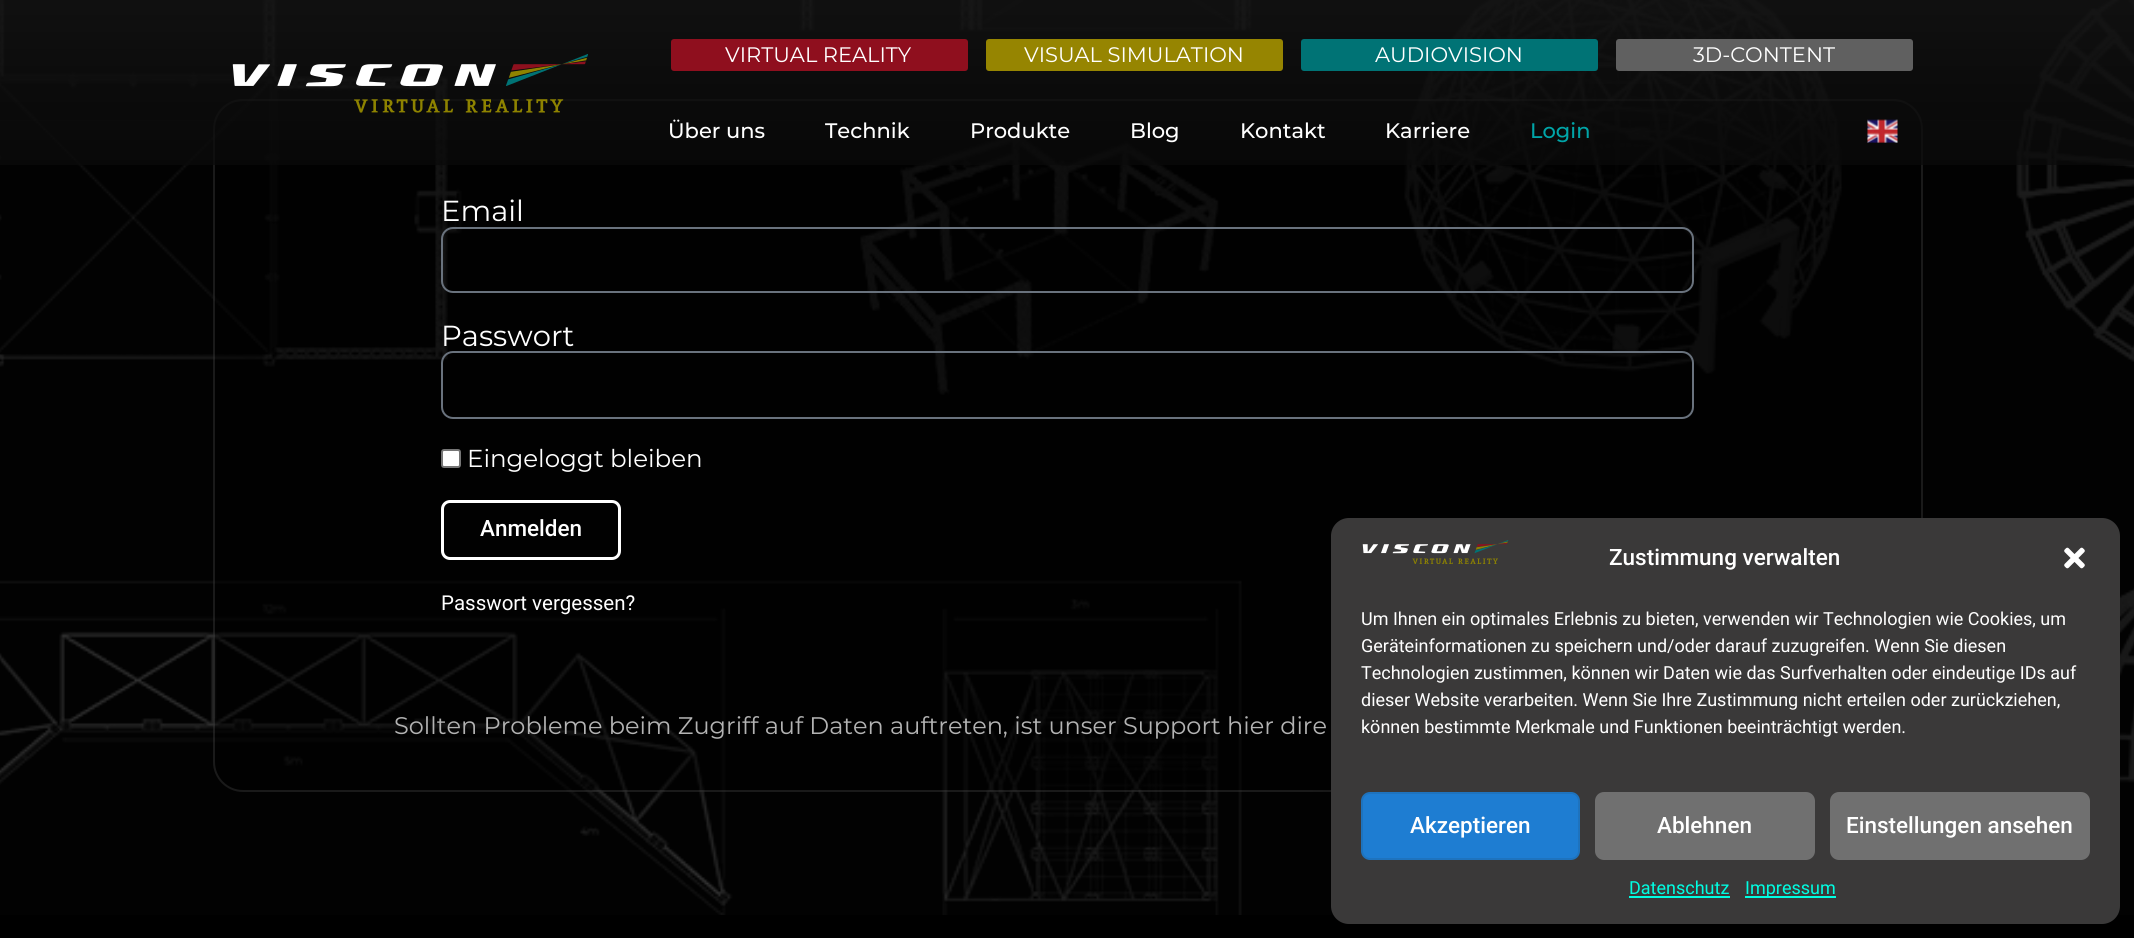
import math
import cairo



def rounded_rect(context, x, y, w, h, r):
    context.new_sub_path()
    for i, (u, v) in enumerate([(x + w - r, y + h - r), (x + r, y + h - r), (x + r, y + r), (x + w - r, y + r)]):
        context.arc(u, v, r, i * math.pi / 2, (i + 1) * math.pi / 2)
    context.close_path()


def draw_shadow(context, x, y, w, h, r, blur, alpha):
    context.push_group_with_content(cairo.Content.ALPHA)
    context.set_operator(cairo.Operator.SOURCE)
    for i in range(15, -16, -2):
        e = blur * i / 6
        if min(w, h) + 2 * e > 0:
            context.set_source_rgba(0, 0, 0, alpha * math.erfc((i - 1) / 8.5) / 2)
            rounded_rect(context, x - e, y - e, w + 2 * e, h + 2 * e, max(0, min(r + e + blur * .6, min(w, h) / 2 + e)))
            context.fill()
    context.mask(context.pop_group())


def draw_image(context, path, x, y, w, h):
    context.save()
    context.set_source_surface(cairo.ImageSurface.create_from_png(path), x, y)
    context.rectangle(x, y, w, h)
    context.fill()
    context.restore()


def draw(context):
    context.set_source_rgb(0, 0, 0)
    context.paint()
    draw_image(context, "images/3.png", 0, 0, 2134, 915)
    context.set_source_rgba(0, 0, 0, 0.43)
    rounded_rect(context, 213, 99, 1710, 693, 30)
    context.fill()
    rounded_rect(context, 214, 100, 1708, 691, 29)
    context.set_source_rgba(1, 1, 1, 0.1)
    context.stroke()
    gradient = cairo.LinearGradient(1067, 0, 1067, 330)
    gradient.add_color_stop_rgba(0, 20 / 255, 20 / 255, 20 / 255, 0.82)
    gradient.add_color_stop_rgba(1, 0, 0, 0, 0.63)
    context.set_source(gradient)
    context.rectangle(0, 0, 2134, 165)
    context.fill()
    draw_image(context, "images/1.png", 232, 54, 356, 59)
    context.set_source_rgb(143 / 255, 15 / 255, 30 / 255)
    rounded_rect(context, 671, 39, 297, 32, 3)
    context.fill()
    context.set_source_rgb(150 / 255, 133 / 255, 1 / 255)
    rounded_rect(context, 986, 39, 297, 32, 3)
    context.fill()
    context.set_source_rgb(0, 115 / 255, 117 / 255)
    rounded_rect(context, 1301, 39, 297, 32, 3)
    context.fill()
    context.set_source_rgb(96 / 255, 96 / 255, 96 / 255)
    rounded_rect(context, 1616, 39, 297, 32, 3)
    context.fill()
    draw_image(context, "images/2.png", 1867, 119, 31, 24)
    rounded_rect(context, 442, 228, 1251, 64, 11)
    context.set_source_rgb(105 / 255, 114 / 255, 125 / 255)
    context.stroke()
    rounded_rect(context, 442, 352, 1251, 66, 11)
    context.stroke()
    context.set_source_rgb(1, 1, 1)
    rounded_rect(context, 442, 450, 18, 17, 2)
    context.fill_preserve()
    context.set_source_rgb(118 / 255, 118 / 255, 118 / 255)
    context.stroke()
    rounded_rect(context, 442.5, 501.5, 177, 57, 7.5)
    context.set_source_rgb(1, 1, 1)
    context.set_line_width(3)
    context.stroke()
    context.set_source_rgb(0, 0, 0)
    draw_shadow(context, 1331, 533, 789, 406, 18, 15, 0.19)
    context.set_source_rgb(58 / 255, 57 / 255, 57 / 255)
    rounded_rect(context, 1331, 518, 789, 406, 18)
    context.fill()
    draw_image(context, "images/4.png", 1362, 540, 147, 24)
    draw_image(context, "images/5.png", 2064, 547, 21, 22)
    context.set_source_rgb(30 / 255, 125 / 255, 210 / 255)
    rounded_rect(context, 1362, 793, 217, 66, 8)
    context.fill_preserve()
    context.set_source_rgb(30 / 255, 115 / 255, 190 / 255)
    context.set_line_width(2)
    context.stroke()
    context.set_source_rgb(112 / 255, 112 / 255, 112 / 255)
    rounded_rect(context, 1596, 793, 218, 66, 8)
    context.fill_preserve()
    context.stroke()
    rounded_rect(context, 1831, 793, 258, 66, 8)
    context.fill_preserve()
    context.stroke()
    context.set_source_rgb(0, 254 / 255, 226 / 255)
    context.rectangle(1629, 896, 101, 2)
    context.fill()
    context.rectangle(1745, 896, 91, 2)
    context.fill()
    context.select_font_face("Montserrat")
    context.set_font_size(21)
    context.set_source_rgb(1, 1, 1)
    context.move_to(725, 62)
    context.show_text("VIRTUAL REALITY")
    context.move_to(1024, 62)
    context.show_text("VISUAL SIMULATION")
    context.move_to(1375, 62)
    context.show_text("AUDIOVISION")
    context.move_to(1693, 62)
    context.show_text("3D-CONTENT")
    context.select_font_face("Montserrat Medium")
    context.move_to(668, 138)
    context.show_text("Über uns")
    context.move_to(825, 138)
    context.show_text("Technik")
    context.move_to(970, 138)
    context.show_text("Produkte")
    context.move_to(1130, 138)
    context.show_text("Blog")
    context.move_to(1240, 138)
    context.show_text("Kontakt")
    context.move_to(1385, 138)
    context.show_text("Karriere")
    context.set_source_rgb(0, 165 / 255, 168 / 255)
    context.move_to(1530, 138)
    context.show_text("Login")
    context.select_font_face("Montserrat")
    context.set_font_size(29)
    context.set_source_rgb(1, 1, 1)
    context.move_to(441, 221)
    context.show_text("Email")
    context.move_to(441, 346)
    context.show_text("Passwort")
    context.set_font_size(24.5)
    context.move_to(467, 467)
    context.show_text("Eingeloggt bleiben")
    context.select_font_face("Roboto Medium")
    context.set_font_size(22.5)
    context.move_to(480, 536)
    context.show_text("Anmelden")
    context.select_font_face("Roboto")
    context.set_font_size(20.5)
    context.move_to(441, 610)
    context.show_text("Passwort vergessen?")
    context.select_font_face("Montserrat")
    context.set_font_size(24)
    context.set_source_rgb(179 / 255, 179 / 255, 179 / 255)
    context.move_to(394, 734)
    context.show_text("Sollten Probleme beim Zugriff auf Daten auftreten, ist unser Support hier dire")
    context.select_font_face("Roboto Medium")
    context.set_font_size(22.5)
    context.set_source_rgb(1, 1, 1)
    context.move_to(1609, 565)
    context.show_text("Zustimmung verwalten")
    context.select_font_face("Roboto")
    context.set_font_size(18)
    context.move_to(1361, 625)
    context.show_text("Um Ihnen ein optimales Erlebnis zu bieten, verwenden wir Technologien wie Cookies, um")
    context.move_to(1361, 652)
    context.show_text("Geräteinformationen zu speichern und/oder darauf zuzugreifen. Wenn Sie diesen")
    context.move_to(1361, 679)
    context.show_text("Technologien zustimmen, können wir Daten wie das Surfverhalten oder eindeutige IDs auf")
    context.move_to(1361, 706)
    context.show_text("dieser Website verarbeiten. Wenn Sie Ihre Zustimmung nicht erteilen oder zurückziehen,")
    context.move_to(1361, 733)
    context.show_text("können bestimmte Merkmale und Funktionen beeinträchtigt werden.")
    context.select_font_face("Roboto Medium")
    context.set_font_size(22.5)
    context.move_to(1410, 833)
    context.show_text("Akzeptieren")
    context.move_to(1657, 833)
    context.show_text("Ablehnen")
    context.move_to(1846, 833)
    context.show_text("Einstellungen ansehen")
    context.select_font_face("Roboto")
    context.set_font_size(18)
    context.set_source_rgb(0, 254 / 255, 226 / 255)
    context.move_to(1629, 894)
    context.show_text("Datenschutz")
    context.move_to(1745, 894)
    context.show_text("Impressum")


surface = cairo.ImageSurface(cairo.Format.RGB24, 2134, 938)
context = cairo.Context(surface)
options = cairo.FontOptions()
options.set_hint_metrics(cairo.HintMetrics.OFF)
options.set_hint_style(cairo.HintStyle.NONE)
context.set_font_options(options)
context.set_miter_limit(4)
draw(context)
surface.write_to_png("out.png")
